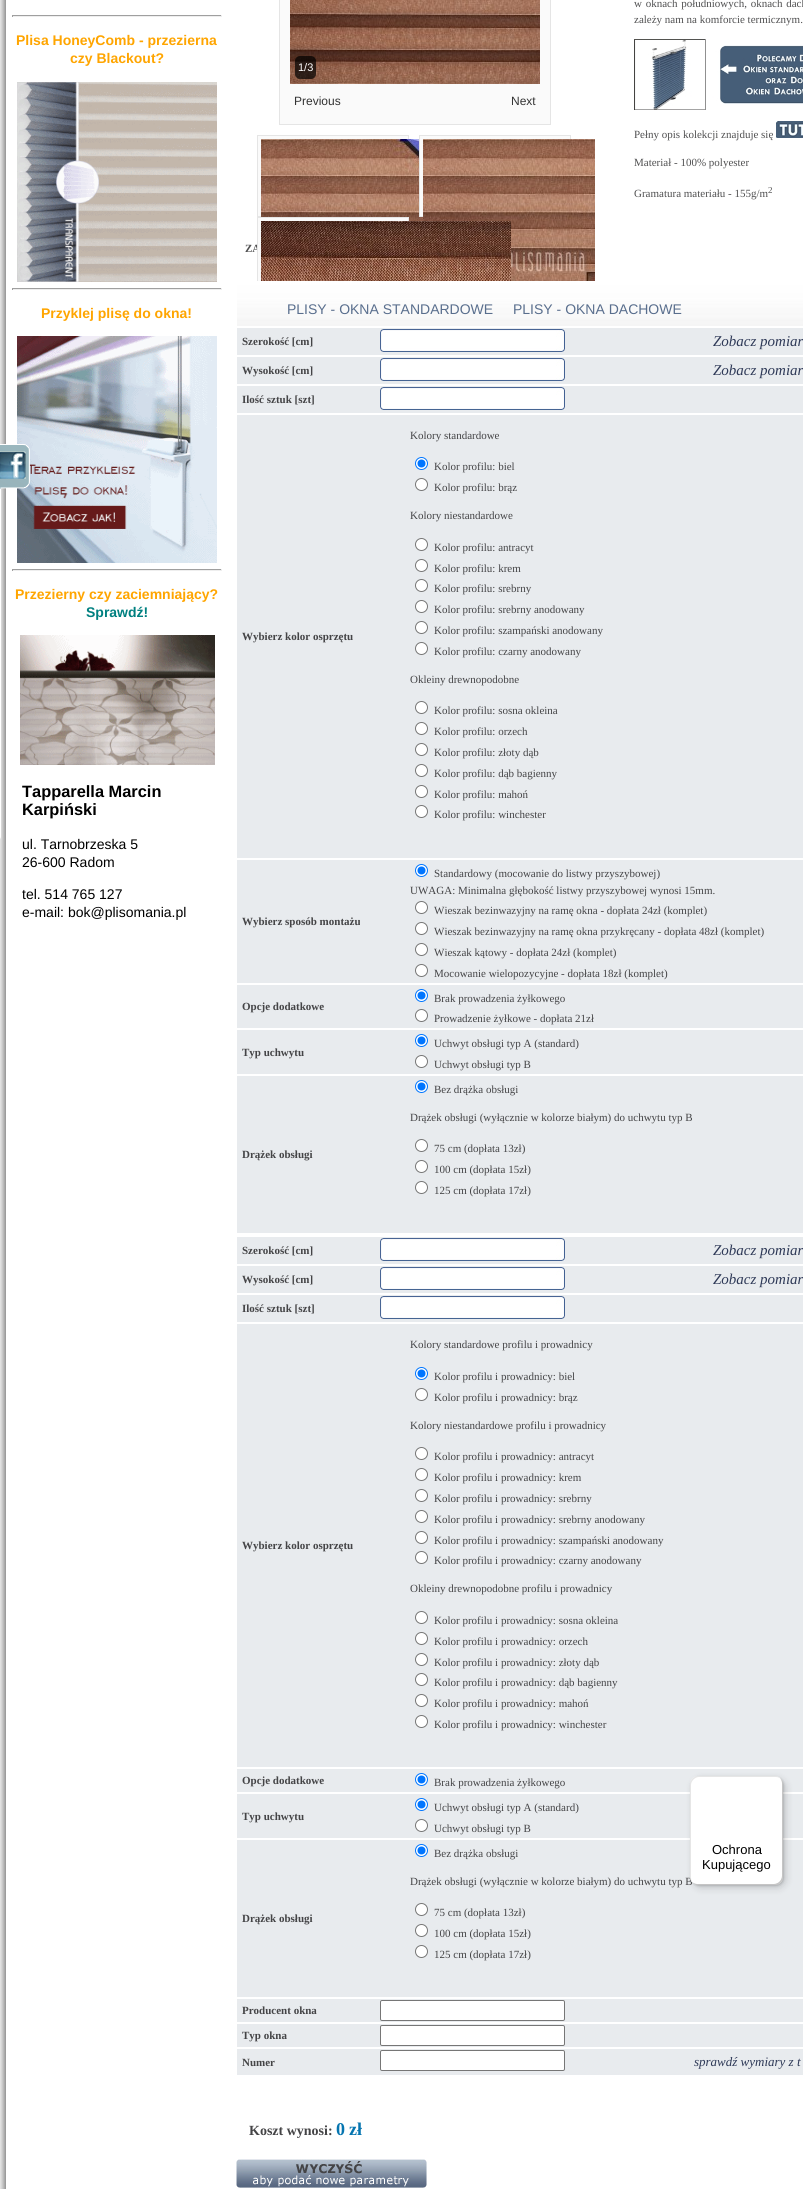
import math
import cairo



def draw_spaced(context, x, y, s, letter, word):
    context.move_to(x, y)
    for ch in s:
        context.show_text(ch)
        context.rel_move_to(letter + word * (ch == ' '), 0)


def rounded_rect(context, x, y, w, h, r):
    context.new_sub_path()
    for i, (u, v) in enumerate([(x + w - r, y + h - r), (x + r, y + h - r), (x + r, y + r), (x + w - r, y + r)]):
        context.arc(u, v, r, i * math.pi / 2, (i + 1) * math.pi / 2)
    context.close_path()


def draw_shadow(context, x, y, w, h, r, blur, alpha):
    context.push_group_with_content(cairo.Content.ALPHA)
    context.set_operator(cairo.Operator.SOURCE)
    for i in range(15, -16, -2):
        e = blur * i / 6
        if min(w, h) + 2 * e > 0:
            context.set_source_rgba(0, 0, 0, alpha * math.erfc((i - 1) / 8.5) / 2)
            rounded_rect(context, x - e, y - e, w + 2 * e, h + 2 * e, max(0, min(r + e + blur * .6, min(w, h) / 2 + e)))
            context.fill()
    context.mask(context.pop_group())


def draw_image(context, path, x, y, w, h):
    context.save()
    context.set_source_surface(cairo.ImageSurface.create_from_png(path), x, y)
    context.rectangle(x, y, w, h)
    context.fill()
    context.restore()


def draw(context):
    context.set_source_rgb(1, 1, 1)
    context.paint()
    draw_image(context, "images/1.png", 0, 0, 6, 2189)
    context.set_source_rgb(159 / 255, 159 / 255, 159 / 255)
    context.rectangle(12, 15, 210, 1)
    context.fill()
    context.set_source_rgb(238 / 255, 238 / 255, 238 / 255)
    context.rectangle(221, 15, 1, 2)
    context.fill()
    context.rectangle(12, 16, 210, 1)
    context.fill()
    context.set_source_rgb(159 / 255, 159 / 255, 159 / 255)
    context.rectangle(12, 15, 1, 2)
    context.fill()
    draw_image(context, "images/3.png", 17, 82, 200, 200)
    context.rectangle(12, 288, 210, 1)
    context.fill()
    context.set_source_rgb(238 / 255, 238 / 255, 238 / 255)
    context.rectangle(221, 288, 1, 2)
    context.fill()
    context.rectangle(12, 289, 210, 1)
    context.fill()
    context.set_source_rgb(159 / 255, 159 / 255, 159 / 255)
    context.rectangle(12, 288, 1, 2)
    context.fill()
    draw_image(context, "images/4.png", 17, 336, 200, 227)
    context.rectangle(12, 569, 210, 1)
    context.fill()
    context.set_source_rgb(238 / 255, 238 / 255, 238 / 255)
    context.rectangle(221, 569, 1, 2)
    context.fill()
    context.rectangle(12, 570, 210, 1)
    context.fill()
    context.set_source_rgb(159 / 255, 159 / 255, 159 / 255)
    context.rectangle(12, 569, 1, 2)
    context.fill()
    draw_image(context, "images/5.png", 20, 635, 195, 130)
    context.set_source_rgb(250 / 255, 250 / 255, 250 / 255)
    context.rectangle(279.5, -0.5, 271, 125)
    context.fill_preserve()
    context.set_source_rgb(229 / 255, 229 / 255, 229 / 255)
    context.set_line_width(1)
    context.stroke()
    draw_image(context, "images/6.png", 290, 0, 250, 84)
    context.set_source_rgba(0, 0, 0, 0.7)
    rounded_rect(context, 295, 56, 21, 23, 5)
    context.fill()
    context.set_source_rgb(250 / 255, 250 / 255, 250 / 255)
    context.rectangle(257.5, 135.5, 151, 81)
    context.fill_preserve()
    context.set_source_rgb(229 / 255, 229 / 255, 229 / 255)
    context.stroke()
    draw_image(context, "images/7.png", 261, 139, 162, 82)
    context.set_source_rgb(250 / 255, 250 / 255, 250 / 255)
    context.rectangle(419.5, 135.5, 151, 81)
    context.fill_preserve()
    context.set_source_rgb(229 / 255, 229 / 255, 229 / 255)
    context.stroke()
    draw_image(context, "images/8.png", 423, 139, 172, 142)
    draw_image(context, "images/10.png", 634, 39, 169, 71)
    draw_image(context, "images/11.png", 776, 121, 27, 17)
    context.set_source_rgb(232 / 255, 235 / 255, 238 / 255)
    context.rectangle(237, 328, 566, 27)
    context.fill()
    draw_image(context, "images/13.png", 380, 329, 185, 23)
    context.rectangle(237, 357, 566, 27)
    context.fill()
    draw_image(context, "images/13.png", 380, 358, 185, 23)
    context.rectangle(237, 386, 566, 27)
    context.fill()
    draw_image(context, "images/13.png", 380, 387, 185, 23)
    context.rectangle(237, 415, 566, 443)
    context.fill()
    context.set_source_rgb(1, 1, 1)
    context.arc(421.5, 463.5, 6, 0, 2 * math.pi)
    context.fill_preserve()
    context.set_source_rgb(0, 117 / 255, 1)
    context.stroke()
    context.arc(421.5, 463.5, 4, 0, 2 * math.pi)
    context.fill()
    context.set_source_rgb(1, 1, 1)
    context.arc(421.5, 484.5, 6, 0, 2 * math.pi)
    context.fill_preserve()
    context.set_source_rgb(118 / 255, 118 / 255, 118 / 255)
    context.stroke()
    context.set_source_rgb(1, 1, 1)
    context.arc(421.5, 544.5, 6, 0, 2 * math.pi)
    context.fill_preserve()
    context.set_source_rgb(118 / 255, 118 / 255, 118 / 255)
    context.stroke()
    context.set_source_rgb(1, 1, 1)
    context.arc(421.5, 565.5, 6, 0, 2 * math.pi)
    context.fill_preserve()
    context.set_source_rgb(118 / 255, 118 / 255, 118 / 255)
    context.stroke()
    context.set_source_rgb(1, 1, 1)
    context.arc(421.5, 585.5, 6, 0, 2 * math.pi)
    context.fill_preserve()
    context.set_source_rgb(118 / 255, 118 / 255, 118 / 255)
    context.stroke()
    context.set_source_rgb(1, 1, 1)
    context.arc(421.5, 606.5, 6, 0, 2 * math.pi)
    context.fill_preserve()
    context.set_source_rgb(118 / 255, 118 / 255, 118 / 255)
    context.stroke()
    context.set_source_rgb(1, 1, 1)
    context.arc(421.5, 627.5, 6, 0, 2 * math.pi)
    context.fill_preserve()
    context.set_source_rgb(118 / 255, 118 / 255, 118 / 255)
    context.stroke()
    context.set_source_rgb(1, 1, 1)
    context.arc(421.5, 648.5, 6, 0, 2 * math.pi)
    context.fill_preserve()
    context.set_source_rgb(118 / 255, 118 / 255, 118 / 255)
    context.stroke()
    context.set_source_rgb(1, 1, 1)
    context.arc(421.5, 707.5, 6, 0, 2 * math.pi)
    context.fill_preserve()
    context.set_source_rgb(118 / 255, 118 / 255, 118 / 255)
    context.stroke()
    context.set_source_rgb(1, 1, 1)
    context.arc(421.5, 728.5, 6, 0, 2 * math.pi)
    context.fill_preserve()
    context.set_source_rgb(118 / 255, 118 / 255, 118 / 255)
    context.stroke()
    context.set_source_rgb(1, 1, 1)
    context.arc(421.5, 749.5, 6, 0, 2 * math.pi)
    context.fill_preserve()
    context.set_source_rgb(118 / 255, 118 / 255, 118 / 255)
    context.stroke()
    context.set_source_rgb(1, 1, 1)
    context.arc(421.5, 770.5, 6, 0, 2 * math.pi)
    context.fill_preserve()
    context.set_source_rgb(118 / 255, 118 / 255, 118 / 255)
    context.stroke()
    context.set_source_rgb(1, 1, 1)
    context.arc(421.5, 791.5, 6, 0, 2 * math.pi)
    context.fill_preserve()
    context.set_source_rgb(118 / 255, 118 / 255, 118 / 255)
    context.stroke()
    context.set_source_rgb(1, 1, 1)
    context.arc(421.5, 811.5, 6, 0, 2 * math.pi)
    context.fill_preserve()
    context.set_source_rgb(118 / 255, 118 / 255, 118 / 255)
    context.stroke()
    context.set_source_rgb(232 / 255, 235 / 255, 238 / 255)
    context.rectangle(237, 860, 566, 123)
    context.fill()
    context.set_source_rgb(1, 1, 1)
    context.arc(421.5, 870.5, 6, 0, 2 * math.pi)
    context.fill_preserve()
    context.set_source_rgb(0, 117 / 255, 1)
    context.stroke()
    context.arc(421.5, 870.5, 4, 0, 2 * math.pi)
    context.fill()
    context.set_source_rgb(1, 1, 1)
    context.arc(421.5, 907.5, 6, 0, 2 * math.pi)
    context.fill_preserve()
    context.set_source_rgb(118 / 255, 118 / 255, 118 / 255)
    context.stroke()
    context.set_source_rgb(1, 1, 1)
    context.arc(421.5, 928.5, 6, 0, 2 * math.pi)
    context.fill_preserve()
    context.set_source_rgb(118 / 255, 118 / 255, 118 / 255)
    context.stroke()
    context.set_source_rgb(1, 1, 1)
    context.arc(421.5, 949.5, 6, 0, 2 * math.pi)
    context.fill_preserve()
    context.set_source_rgb(118 / 255, 118 / 255, 118 / 255)
    context.stroke()
    context.set_source_rgb(1, 1, 1)
    context.arc(421.5, 970.5, 6, 0, 2 * math.pi)
    context.fill_preserve()
    context.set_source_rgb(118 / 255, 118 / 255, 118 / 255)
    context.stroke()
    context.set_source_rgb(232 / 255, 235 / 255, 238 / 255)
    context.rectangle(237, 985, 566, 43)
    context.fill()
    context.set_source_rgb(1, 1, 1)
    context.arc(421.5, 995.5, 6, 0, 2 * math.pi)
    context.fill_preserve()
    context.set_source_rgb(0, 117 / 255, 1)
    context.stroke()
    context.arc(421.5, 995.5, 4, 0, 2 * math.pi)
    context.fill()
    context.set_source_rgb(1, 1, 1)
    context.arc(421.5, 1015.5, 6, 0, 2 * math.pi)
    context.fill_preserve()
    context.set_source_rgb(118 / 255, 118 / 255, 118 / 255)
    context.stroke()
    context.set_source_rgb(232 / 255, 235 / 255, 238 / 255)
    context.rectangle(237, 1030, 566, 44)
    context.fill()
    context.set_source_rgb(1, 1, 1)
    context.arc(421.5, 1040.5, 6, 0, 2 * math.pi)
    context.fill_preserve()
    context.set_source_rgb(0, 117 / 255, 1)
    context.stroke()
    context.arc(421.5, 1040.5, 4, 0, 2 * math.pi)
    context.fill()
    context.set_source_rgb(1, 1, 1)
    context.arc(421.5, 1061.5, 6, 0, 2 * math.pi)
    context.fill_preserve()
    context.set_source_rgb(118 / 255, 118 / 255, 118 / 255)
    context.stroke()
    context.set_source_rgb(232 / 255, 235 / 255, 238 / 255)
    context.rectangle(237, 1076, 566, 157)
    context.fill()
    context.set_source_rgb(1, 1, 1)
    context.arc(421.5, 1086.5, 6, 0, 2 * math.pi)
    context.fill_preserve()
    context.set_source_rgb(0, 117 / 255, 1)
    context.stroke()
    context.arc(421.5, 1086.5, 4, 0, 2 * math.pi)
    context.fill()
    context.set_source_rgb(1, 1, 1)
    context.arc(421.5, 1145.5, 6, 0, 2 * math.pi)
    context.fill_preserve()
    context.set_source_rgb(118 / 255, 118 / 255, 118 / 255)
    context.stroke()
    context.set_source_rgb(1, 1, 1)
    context.arc(421.5, 1166.5, 6, 0, 2 * math.pi)
    context.fill_preserve()
    context.set_source_rgb(118 / 255, 118 / 255, 118 / 255)
    context.stroke()
    context.set_source_rgb(1, 1, 1)
    context.arc(421.5, 1187.5, 6, 0, 2 * math.pi)
    context.fill_preserve()
    context.set_source_rgb(118 / 255, 118 / 255, 118 / 255)
    context.stroke()
    context.set_source_rgb(232 / 255, 235 / 255, 238 / 255)
    context.rectangle(237, 1237, 566, 27)
    context.fill()
    draw_image(context, "images/13.png", 380, 1238, 185, 23)
    context.rectangle(237, 1266, 566, 27)
    context.fill()
    draw_image(context, "images/13.png", 380, 1267, 185, 23)
    context.rectangle(237, 1295, 566, 27)
    context.fill()
    draw_image(context, "images/13.png", 380, 1296, 185, 23)
    context.rectangle(237, 1324, 566, 443)
    context.fill()
    context.set_source_rgb(1, 1, 1)
    context.arc(421.5, 1373.5, 6, 0, 2 * math.pi)
    context.fill_preserve()
    context.set_source_rgb(0, 117 / 255, 1)
    context.stroke()
    context.arc(421.5, 1373.5, 4, 0, 2 * math.pi)
    context.fill()
    context.set_source_rgb(1, 1, 1)
    context.arc(421.5, 1394.5, 6, 0, 2 * math.pi)
    context.fill_preserve()
    context.set_source_rgb(118 / 255, 118 / 255, 118 / 255)
    context.stroke()
    context.set_source_rgb(1, 1, 1)
    context.arc(421.5, 1453.5, 6, 0, 2 * math.pi)
    context.fill_preserve()
    context.set_source_rgb(118 / 255, 118 / 255, 118 / 255)
    context.stroke()
    context.set_source_rgb(1, 1, 1)
    context.arc(421.5, 1474.5, 6, 0, 2 * math.pi)
    context.fill_preserve()
    context.set_source_rgb(118 / 255, 118 / 255, 118 / 255)
    context.stroke()
    context.set_source_rgb(1, 1, 1)
    context.arc(421.5, 1495.5, 6, 0, 2 * math.pi)
    context.fill_preserve()
    context.set_source_rgb(118 / 255, 118 / 255, 118 / 255)
    context.stroke()
    context.set_source_rgb(1, 1, 1)
    context.arc(421.5, 1516.5, 6, 0, 2 * math.pi)
    context.fill_preserve()
    context.set_source_rgb(118 / 255, 118 / 255, 118 / 255)
    context.stroke()
    context.set_source_rgb(1, 1, 1)
    context.arc(421.5, 1537.5, 6, 0, 2 * math.pi)
    context.fill_preserve()
    context.set_source_rgb(118 / 255, 118 / 255, 118 / 255)
    context.stroke()
    context.set_source_rgb(1, 1, 1)
    context.arc(421.5, 1557.5, 6, 0, 2 * math.pi)
    context.fill_preserve()
    context.set_source_rgb(118 / 255, 118 / 255, 118 / 255)
    context.stroke()
    context.set_source_rgb(1, 1, 1)
    context.arc(421.5, 1617.5, 6, 0, 2 * math.pi)
    context.fill_preserve()
    context.set_source_rgb(118 / 255, 118 / 255, 118 / 255)
    context.stroke()
    context.set_source_rgb(1, 1, 1)
    context.arc(421.5, 1638.5, 6, 0, 2 * math.pi)
    context.fill_preserve()
    context.set_source_rgb(118 / 255, 118 / 255, 118 / 255)
    context.stroke()
    context.set_source_rgb(1, 1, 1)
    context.arc(421.5, 1659.5, 6, 0, 2 * math.pi)
    context.fill_preserve()
    context.set_source_rgb(118 / 255, 118 / 255, 118 / 255)
    context.stroke()
    context.set_source_rgb(1, 1, 1)
    context.arc(421.5, 1679.5, 6, 0, 2 * math.pi)
    context.fill_preserve()
    context.set_source_rgb(118 / 255, 118 / 255, 118 / 255)
    context.stroke()
    context.set_source_rgb(1, 1, 1)
    context.arc(421.5, 1700.5, 6, 0, 2 * math.pi)
    context.fill_preserve()
    context.set_source_rgb(118 / 255, 118 / 255, 118 / 255)
    context.stroke()
    context.set_source_rgb(1, 1, 1)
    context.arc(421.5, 1721.5, 6, 0, 2 * math.pi)
    context.fill_preserve()
    context.set_source_rgb(118 / 255, 118 / 255, 118 / 255)
    context.stroke()
    context.set_source_rgb(232 / 255, 235 / 255, 238 / 255)
    context.rectangle(237, 1769, 566, 23)
    context.fill()
    context.set_source_rgb(1, 1, 1)
    context.arc(421.5, 1779.5, 6, 0, 2 * math.pi)
    context.fill_preserve()
    context.set_source_rgb(0, 117 / 255, 1)
    context.stroke()
    context.arc(421.5, 1779.5, 4, 0, 2 * math.pi)
    context.fill()
    context.set_source_rgb(232 / 255, 235 / 255, 238 / 255)
    context.rectangle(237, 1794, 566, 44)
    context.fill()
    context.set_source_rgb(1, 1, 1)
    context.arc(421.5, 1804.5, 6, 0, 2 * math.pi)
    context.fill_preserve()
    context.set_source_rgb(0, 117 / 255, 1)
    context.stroke()
    context.arc(421.5, 1804.5, 4, 0, 2 * math.pi)
    context.fill()
    context.set_source_rgb(1, 1, 1)
    context.arc(421.5, 1825.5, 6, 0, 2 * math.pi)
    context.fill_preserve()
    context.set_source_rgb(118 / 255, 118 / 255, 118 / 255)
    context.stroke()
    context.set_source_rgb(232 / 255, 235 / 255, 238 / 255)
    context.rectangle(237, 1840, 566, 157)
    context.fill()
    context.set_source_rgb(1, 1, 1)
    context.arc(421.5, 1850.5, 6, 0, 2 * math.pi)
    context.fill_preserve()
    context.set_source_rgb(0, 117 / 255, 1)
    context.stroke()
    context.arc(421.5, 1850.5, 4, 0, 2 * math.pi)
    context.fill()
    context.set_source_rgb(1, 1, 1)
    context.arc(421.5, 1909.5, 6, 0, 2 * math.pi)
    context.fill_preserve()
    context.set_source_rgb(118 / 255, 118 / 255, 118 / 255)
    context.stroke()
    context.set_source_rgb(1, 1, 1)
    context.arc(421.5, 1930.5, 6, 0, 2 * math.pi)
    context.fill_preserve()
    context.set_source_rgb(118 / 255, 118 / 255, 118 / 255)
    context.stroke()
    context.set_source_rgb(1, 1, 1)
    context.arc(421.5, 1951.5, 6, 0, 2 * math.pi)
    context.fill_preserve()
    context.set_source_rgb(118 / 255, 118 / 255, 118 / 255)
    context.stroke()
    context.set_source_rgb(232 / 255, 235 / 255, 238 / 255)
    context.rectangle(237, 1999, 566, 23)
    context.fill()
    context.set_source_rgb(1, 1, 1)
    rounded_rect(context, 380.5, 2000.5, 184, 20, 1.5)
    context.fill_preserve()
    context.set_source_rgb(118 / 255, 118 / 255, 118 / 255)
    context.stroke()
    context.set_source_rgb(232 / 255, 235 / 255, 238 / 255)
    context.rectangle(237, 2024, 566, 23)
    context.fill()
    context.set_source_rgb(1, 1, 1)
    rounded_rect(context, 380.5, 2025.5, 184, 20, 1.5)
    context.fill_preserve()
    context.set_source_rgb(118 / 255, 118 / 255, 118 / 255)
    context.stroke()
    context.set_source_rgb(232 / 255, 235 / 255, 238 / 255)
    context.rectangle(237, 2049, 566, 26)
    context.fill()
    context.set_source_rgb(1, 1, 1)
    rounded_rect(context, 380.5, 2050.5, 184, 20, 1.5)
    context.fill_preserve()
    context.set_source_rgb(118 / 255, 118 / 255, 118 / 255)
    context.stroke()
    draw_image(context, "images/14.png", 236, 2159, 191, 29)
    context.set_source_rgb(0, 0, 0)
    draw_shadow(context, 693, 1779, 93, 109, 8, 4, 0.15)
    draw_shadow(context, 691, 1777, 93, 109, 8, 1, 0.15)
    context.select_font_face("Liberation Sans", cairo.FontSlant.NORMAL, cairo.FontWeight.BOLD)
    context.set_font_size(14)
    context.set_source_rgb(1, 165 / 255, 0)
    context.move_to(16, 45)
    context.show_text("Plisa HoneyComb - przezierna")
    context.move_to(70, 63)
    context.show_text("czy Blackout?")
    context.move_to(41, 318)
    context.show_text("Przyklej plisę do okna!")
    context.move_to(15, 599)
    context.show_text("Przezierny czy zaciemniający?")
    context.set_source_rgb(0, 128 / 255, 128 / 255)
    context.move_to(86, 617)
    context.show_text("Sprawdź!")
    context.set_font_size(16.4)
    context.set_source_rgb(0, 0, 0)
    context.move_to(22, 797)
    context.show_text("Tapparella Marcin")
    context.move_to(22, 815)
    context.show_text("Karpiński")
    context.select_font_face("Liberation Sans")
    context.set_font_size(14)
    context.move_to(22, 849)
    context.show_text("ul. Tarnobrzeska 5")
    draw_image(context, "images/2.png", 0, 444, 30, 395)
    context.move_to(22, 867)
    context.show_text("26-600 Radom")
    context.move_to(22, 899)
    context.show_text("tel. 514 765 127")
    context.move_to(22, 917)
    context.show_text("e-mail: bok@plisomania.pl")
    context.set_font_size(11)
    context.set_source_rgb(1, 1, 1)
    context.move_to(298, 71)
    context.show_text("1/3")
    context.set_font_size(12)
    context.set_source_rgb(51 / 255, 51 / 255, 51 / 255)
    context.move_to(294, 105)
    context.show_text("Previous")
    context.move_to(511, 105)
    context.show_text("Next")
    context.select_font_face("Liberation Serif")
    context.set_font_size(11)
    context.set_source_rgb(80 / 255, 80 / 255, 81 / 255)
    draw_spaced(context, 634, 7, "w oknach południowych, oknach dach", 0, 1)
    context.move_to(634, 23)
    context.show_text("zależy nam na komforcie termicznym.")
    context.move_to(634, 138)
    context.show_text("Pełny opis kolekcji znajduje się")
    context.move_to(634, 166)
    context.show_text("Materiał - 100% polyester")
    context.move_to(634, 197)
    context.show_text("Gramatura materiału - 155g/m")
    context.set_font_size(9)
    context.move_to(768, 193)
    context.show_text("2")
    context.select_font_face("Liberation Serif", cairo.FontSlant.NORMAL, cairo.FontWeight.BOLD)
    context.set_font_size(11)
    context.move_to(245, 252)
    context.show_text("ZA")
    context.set_source_rgb(250 / 255, 250 / 255, 250 / 255)
    context.rectangle(258, 218, 150, 63)
    context.fill()
    context.rectangle(257.5, 217.5, 151, 81)
    context.set_source_rgb(229 / 255, 229 / 255, 229 / 255)
    context.stroke()
    draw_image(context, "images/9.png", 261, 221, 250, 60)
    draw_image(context, "images/12.png", 237, 281, 566, 45)
    context.select_font_face("Liberation Sans")
    context.set_font_size(14)
    context.set_source_rgb(89 / 255, 110 / 255, 141 / 255)
    context.move_to(287, 314)
    context.show_text("PLISY - OKNA STANDARDOWE")
    context.move_to(513, 314)
    context.show_text("PLISY - OKNA DACHOWE")
    context.select_font_face("Liberation Serif", cairo.FontSlant.NORMAL, cairo.FontWeight.BOLD)
    context.set_font_size(11)
    context.set_source_rgb(68 / 255, 68 / 255, 70 / 255)
    context.move_to(242, 345)
    context.show_text("Szerokość [cm]")
    context.select_font_face("Liberation Serif", cairo.FontSlant.ITALIC)
    context.set_font_size(15)
    context.set_source_rgb(46 / 255, 57 / 255, 87 / 255)
    context.move_to(713, 346)
    context.show_text("Zobacz pomiar")
    context.select_font_face("Liberation Serif", cairo.FontSlant.NORMAL, cairo.FontWeight.BOLD)
    context.set_font_size(11)
    context.set_source_rgb(68 / 255, 68 / 255, 70 / 255)
    context.move_to(242, 374)
    context.show_text("Wysokość [cm]")
    context.select_font_face("Liberation Serif", cairo.FontSlant.ITALIC)
    context.set_font_size(15)
    context.set_source_rgb(46 / 255, 57 / 255, 87 / 255)
    context.move_to(713, 375)
    context.show_text("Zobacz pomiar")
    context.select_font_face("Liberation Serif", cairo.FontSlant.NORMAL, cairo.FontWeight.BOLD)
    context.set_font_size(11)
    context.set_source_rgb(68 / 255, 68 / 255, 70 / 255)
    context.move_to(242, 403)
    context.show_text("Ilość sztuk [szt]")
    context.move_to(242, 640)
    context.show_text("Wybierz kolor osprzętu")
    context.select_font_face("Liberation Serif")
    context.move_to(410, 439)
    context.show_text("Kolory standardowe")
    context.move_to(434, 470)
    context.show_text("Kolor profilu: biel")
    context.move_to(434, 491)
    context.show_text("Kolor profilu: brąz")
    context.move_to(410, 519)
    context.show_text("Kolory niestandardowe")
    context.move_to(434, 551)
    context.show_text("Kolor profilu: antracyt")
    context.move_to(434, 572)
    context.show_text("Kolor profilu: krem")
    context.move_to(434, 592)
    context.show_text("Kolor profilu: srebrny")
    context.move_to(434, 613)
    context.show_text("Kolor profilu: srebrny anodowany")
    context.move_to(434, 634)
    context.show_text("Kolor profilu: szampański anodowany")
    context.move_to(434, 655)
    context.show_text("Kolor profilu: czarny anodowany")
    context.move_to(410, 683)
    context.show_text("Okleiny drewnopodobne")
    context.move_to(434, 714)
    context.show_text("Kolor profilu: sosna okleina")
    context.move_to(434, 735)
    context.show_text("Kolor profilu: orzech")
    context.move_to(434, 756)
    context.show_text("Kolor profilu: złoty dąb")
    context.move_to(434, 777)
    context.show_text("Kolor profilu: dąb bagienny")
    context.move_to(434, 798)
    context.show_text("Kolor profilu: mahoń")
    context.move_to(434, 818)
    context.show_text("Kolor profilu: winchester")
    context.select_font_face("Liberation Serif", cairo.FontSlant.NORMAL, cairo.FontWeight.BOLD)
    context.move_to(242, 925)
    context.show_text("Wybierz sposób montażu")
    context.select_font_face("Liberation Serif")
    context.move_to(434, 877)
    context.show_text("Standardowy (mocowanie do listwy przyszybowej)")
    context.move_to(410, 894)
    context.show_text("UWAGA: Minimalna głębokość listwy przyszybowej wynosi 15mm.")
    context.move_to(434, 914)
    context.show_text("Wieszak bezinwazyjny na ramę okna - dopłata 24zł (komplet)")
    context.move_to(434, 935)
    context.show_text("Wieszak bezinwazyjny na ramę okna przykręcany - dopłata 48zł (komplet)")
    context.move_to(434, 956)
    context.show_text("Wieszak kątowy - dopłata 24zł (komplet)")
    context.move_to(434, 977)
    context.show_text("Mocowanie wielopozycyjne - dopłata 18zł (komplet)")
    context.select_font_face("Liberation Serif", cairo.FontSlant.NORMAL, cairo.FontWeight.BOLD)
    context.move_to(242, 1010)
    context.show_text("Opcje dodatkowe")
    context.select_font_face("Liberation Serif")
    context.move_to(434, 1002)
    context.show_text("Brak prowadzenia żyłkowego")
    context.move_to(434, 1022)
    context.show_text("Prowadzenie żyłkowe - dopłata 21zł")
    context.select_font_face("Liberation Serif", cairo.FontSlant.NORMAL, cairo.FontWeight.BOLD)
    context.move_to(242, 1056)
    context.show_text("Typ uchwytu")
    context.select_font_face("Liberation Serif")
    context.move_to(434, 1047)
    context.show_text("Uchwyt obsługi typ A (standard)")
    context.move_to(434, 1068)
    context.show_text("Uchwyt obsługi typ B")
    context.select_font_face("Liberation Serif", cairo.FontSlant.NORMAL, cairo.FontWeight.BOLD)
    context.move_to(242, 1158)
    context.show_text("Drążek obsługi")
    context.select_font_face("Liberation Serif")
    context.move_to(434, 1093)
    context.show_text("Bez drążka obsługi")
    context.move_to(410, 1121)
    context.show_text("Drążek obsługi (wyłącznie w kolorze białym) do uchwytu typ B")
    context.move_to(434, 1152)
    context.show_text("75 cm (dopłata 13zł)")
    context.move_to(434, 1173)
    context.show_text("100 cm (dopłata 15zł)")
    context.move_to(434, 1194)
    context.show_text("125 cm (dopłata 17zł)")
    context.select_font_face("Liberation Serif", cairo.FontSlant.NORMAL, cairo.FontWeight.BOLD)
    context.move_to(242, 1254)
    context.show_text("Szerokość [cm]")
    context.select_font_face("Liberation Serif", cairo.FontSlant.ITALIC)
    context.set_font_size(15)
    context.set_source_rgb(46 / 255, 57 / 255, 87 / 255)
    context.move_to(713, 1255)
    context.show_text("Zobacz pomiar")
    context.select_font_face("Liberation Serif", cairo.FontSlant.NORMAL, cairo.FontWeight.BOLD)
    context.set_font_size(11)
    context.set_source_rgb(68 / 255, 68 / 255, 70 / 255)
    context.move_to(242, 1283)
    context.show_text("Wysokość [cm]")
    context.select_font_face("Liberation Serif", cairo.FontSlant.ITALIC)
    context.set_font_size(15)
    context.set_source_rgb(46 / 255, 57 / 255, 87 / 255)
    context.move_to(713, 1284)
    context.show_text("Zobacz pomiar")
    context.select_font_face("Liberation Serif", cairo.FontSlant.NORMAL, cairo.FontWeight.BOLD)
    context.set_font_size(11)
    context.set_source_rgb(68 / 255, 68 / 255, 70 / 255)
    context.move_to(242, 1312)
    context.show_text("Ilość sztuk [szt]")
    context.move_to(242, 1549)
    context.show_text("Wybierz kolor osprzętu")
    context.select_font_face("Liberation Serif")
    context.move_to(410, 1348)
    context.show_text("Kolory standardowe profilu i prowadnicy")
    context.move_to(434, 1380)
    context.show_text("Kolor profilu i prowadnicy: biel")
    context.move_to(434, 1401)
    context.show_text("Kolor profilu i prowadnicy: brąz")
    context.move_to(410, 1429)
    context.show_text("Kolory niestandardowe profilu i prowadnicy")
    context.move_to(434, 1460)
    context.show_text("Kolor profilu i prowadnicy: antracyt")
    context.move_to(434, 1481)
    context.show_text("Kolor profilu i prowadnicy: krem")
    context.move_to(434, 1502)
    context.show_text("Kolor profilu i prowadnicy: srebrny")
    context.move_to(434, 1523)
    context.show_text("Kolor profilu i prowadnicy: srebrny anodowany")
    context.move_to(434, 1544)
    context.show_text("Kolor profilu i prowadnicy: szampański anodowany")
    context.move_to(434, 1564)
    context.show_text("Kolor profilu i prowadnicy: czarny anodowany")
    context.move_to(410, 1592)
    context.show_text("Okleiny drewnopodobne profilu i prowadnicy")
    context.move_to(434, 1624)
    context.show_text("Kolor profilu i prowadnicy: sosna okleina")
    context.move_to(434, 1645)
    context.show_text("Kolor profilu i prowadnicy: orzech")
    context.move_to(434, 1666)
    context.show_text("Kolor profilu i prowadnicy: złoty dąb")
    context.move_to(434, 1686)
    context.show_text("Kolor profilu i prowadnicy: dąb bagienny")
    context.move_to(434, 1707)
    context.show_text("Kolor profilu i prowadnicy: mahoń")
    context.move_to(434, 1728)
    context.show_text("Kolor profilu i prowadnicy: winchester")
    context.select_font_face("Liberation Serif", cairo.FontSlant.NORMAL, cairo.FontWeight.BOLD)
    context.move_to(242, 1784)
    context.show_text("Opcje dodatkowe")
    context.select_font_face("Liberation Serif")
    context.move_to(434, 1786)
    context.show_text("Brak prowadzenia żyłkowego")
    context.select_font_face("Liberation Serif", cairo.FontSlant.NORMAL, cairo.FontWeight.BOLD)
    context.move_to(242, 1820)
    context.show_text("Typ uchwytu")
    context.select_font_face("Liberation Serif")
    context.move_to(434, 1811)
    context.show_text("Uchwyt obsługi typ A (standard)")
    context.move_to(434, 1832)
    context.show_text("Uchwyt obsługi typ B")
    context.select_font_face("Liberation Serif", cairo.FontSlant.NORMAL, cairo.FontWeight.BOLD)
    context.move_to(242, 1922)
    context.show_text("Drążek obsługi")
    context.select_font_face("Liberation Serif")
    context.move_to(434, 1857)
    context.show_text("Bez drążka obsługi")
    context.move_to(410, 1885)
    context.show_text("Drążek obsługi (wyłącznie w kolorze białym) do uchwytu typ B")
    context.move_to(434, 1916)
    context.show_text("75 cm (dopłata 13zł)")
    context.move_to(434, 1937)
    context.show_text("100 cm (dopłata 15zł)")
    context.move_to(434, 1958)
    context.show_text("125 cm (dopłata 17zł)")
    context.select_font_face("Liberation Serif", cairo.FontSlant.NORMAL, cairo.FontWeight.BOLD)
    context.move_to(242, 2014)
    context.show_text("Producent okna")
    context.move_to(242, 2039)
    context.show_text("Typ okna")
    context.move_to(242, 2066)
    context.show_text("Numer")
    context.select_font_face("Liberation Serif", cairo.FontSlant.ITALIC)
    context.set_font_size(13)
    context.set_source_rgb(46 / 255, 57 / 255, 87 / 255)
    context.move_to(694, 2066)
    context.show_text("sprawdź wymiary z t")
    context.select_font_face("Liberation Serif", cairo.FontSlant.NORMAL, cairo.FontWeight.BOLD)
    context.set_font_size(14)
    context.set_source_rgb(68 / 255, 68 / 255, 70 / 255)
    context.move_to(249, 2135)
    context.show_text("Koszt wynosi:")
    context.set_font_size(18)
    context.set_source_rgb(5 / 255, 117 / 255, 176 / 255)
    context.move_to(336, 2135)
    context.show_text("0")
    context.move_to(349, 2135)
    context.show_text("zł")
    context.set_source_rgb(1, 1, 1)
    rounded_rect(context, 690, 1776, 93, 109, 8)
    context.fill()
    context.set_source_rgba(0, 0, 0, 0.1)
    context.new_path()
    context.move_to(699, 1777)
    context.line_to(776, 1777)
    context.curve_to(778, 1777, 780, 1778, 782, 1780)
    context.curve_to(780, 1778, 778, 1776, 775, 1776)
    context.line_to(698, 1776)
    context.curve_to(694, 1776, 690, 1780, 690, 1784)
    context.line_to(690, 1877)
    context.curve_to(690, 1880, 692, 1882, 694, 1884)
    context.curve_to(692, 1882, 691, 1880, 691, 1878)
    context.line_to(691, 1785)
    context.curve_to(691, 1781, 695, 1777, 699, 1777)
    context.close_path()
    context.fill()
    context.set_source_rgba(0, 0, 0, 0.2)
    context.new_path()
    context.move_to(691, 1881)
    context.curve_to(693, 1883, 695, 1885, 698, 1885)
    context.line_to(775, 1885)
    context.curve_to(779, 1885, 783, 1881, 783, 1877)
    context.line_to(783, 1784)
    context.curve_to(783, 1781, 781, 1779, 779, 1777)
    context.curve_to(781, 1779, 782, 1781, 782, 1783)
    context.line_to(782, 1876)
    context.curve_to(782, 1880, 778, 1884, 774, 1884)
    context.line_to(697, 1884)
    context.curve_to(695, 1884, 693, 1883, 691, 1881)
    context.close_path()
    context.fill()
    context.set_source_rgba(50 / 255, 50 / 255, 50 / 255, 0.2)
    context.new_path()
    context.move_to(692, 1882)
    context.curve_to(693, 1884, 696, 1885, 698, 1885)
    context.line_to(775, 1885)
    context.curve_to(779, 1885, 783, 1881, 783, 1877)
    context.line_to(783, 1784)
    context.curve_to(783, 1782, 782, 1779, 780, 1778)
    context.curve_to(781, 1779, 782, 1781, 782, 1783)
    context.line_to(782, 1876)
    context.curve_to(782, 1881, 779, 1884, 774, 1884)
    context.line_to(697, 1884)
    context.curve_to(695, 1884, 693, 1883, 692, 1882)
    context.close_path()
    context.fill()
    context.set_source_rgba(1, 1, 1, 0.3)
    context.new_path()
    context.move_to(782, 1784)
    context.curve_to(782, 1779, 779, 1776, 774, 1776)
    context.line_to(775, 1776)
    context.curve_to(779, 1776, 783, 1780, 783, 1784)
    context.line_to(783, 1877)
    context.curve_to(783, 1881, 779, 1885, 775, 1885)
    context.line_to(698, 1885)
    context.curve_to(694, 1885, 690, 1881, 690, 1877)
    context.line_to(690, 1876)
    context.curve_to(690, 1881, 693, 1884, 698, 1884)
    context.line_to(774, 1884)
    context.curve_to(779, 1884, 782, 1881, 782, 1876)
    context.close_path()
    context.fill()
    context.select_font_face("Liberation Sans")
    context.set_font_size(13)
    context.set_source_rgb(0, 0, 0)
    context.move_to(712, 1854)
    context.show_text("Ochrona")
    context.move_to(702, 1869)
    context.show_text("Kupującego")


surface = cairo.ImageSurface(cairo.Format.RGB24, 803, 2189)
context = cairo.Context(surface)
options = cairo.FontOptions()
options.set_hint_metrics(cairo.HintMetrics.OFF)
options.set_hint_style(cairo.HintStyle.NONE)
context.set_font_options(options)
context.set_miter_limit(4)
draw(context)
surface.write_to_png("out.png")
